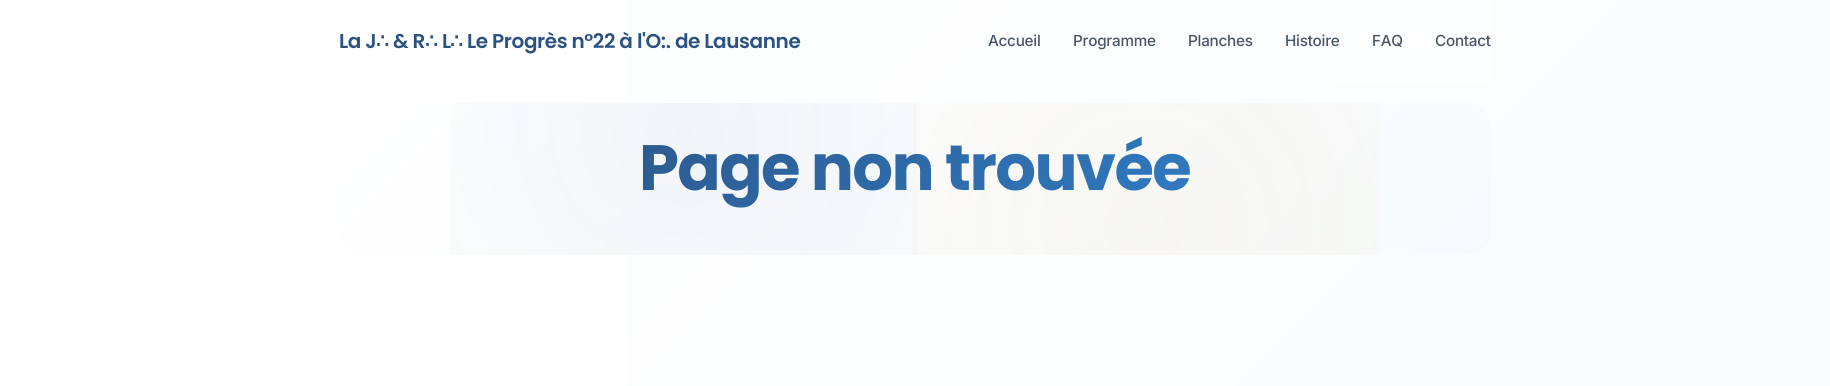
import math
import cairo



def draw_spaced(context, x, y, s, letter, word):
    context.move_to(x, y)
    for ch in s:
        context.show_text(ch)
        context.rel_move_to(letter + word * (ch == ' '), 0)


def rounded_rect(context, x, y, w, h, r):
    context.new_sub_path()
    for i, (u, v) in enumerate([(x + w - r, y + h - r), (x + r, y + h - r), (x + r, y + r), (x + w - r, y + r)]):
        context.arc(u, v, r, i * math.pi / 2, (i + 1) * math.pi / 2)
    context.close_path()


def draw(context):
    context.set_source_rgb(1, 1, 1)
    context.paint()
    gradient = cairo.LinearGradient(105, -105, 1725, 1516)
    gradient.add_color_stop_rgba(0, 1, 1, 1, 1)
    gradient.add_color_stop_rgba(1, 247 / 255, 250 / 255, 252 / 255, 1)
    context.set_source(gradient)
    context.rectangle(627, 0, 1203, 386)
    context.fill()
    gradient = cairo.LinearGradient(105, -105, 1725, 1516)
    gradient.add_color_stop_rgba(0, 1, 1, 1, 1)
    gradient.add_color_stop_rgba(1, 253 / 255, 254 / 255, 254 / 255, 1)
    context.set_source(gradient)
    context.rectangle(1336, 0, 155, 83)
    context.fill()
    gradient = cairo.LinearGradient(589, -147, 1241, 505)
    gradient.add_color_stop_rgba(0, 1, 1, 1, 1)
    gradient.add_color_stop_rgba(1, 247 / 255, 250 / 255, 252 / 255, 1)
    context.set_source(gradient)
    rounded_rect(context, 339, 103, 1152, 152, 24)
    context.fill()
    gradient = cairo.RadialGradient(1145, 225, 0, 1145, 225, 816)
    gradient.add_color_stop_rgba(0, 214 / 255, 158 / 255, 46 / 255, 0.05)
    gradient.add_color_stop_rgba(0.5, 214 / 255, 158 / 255, 46 / 255, 0)
    context.set_source(gradient)
    context.rectangle(913, 103, 466, 152)
    context.fill()
    gradient = cairo.RadialGradient(685, 133, 0, 685, 133, 816)
    gradient.add_color_stop_rgba(0, 44 / 255, 82 / 255, 130 / 255, 0.05)
    gradient.add_color_stop_rgba(0.5, 44 / 255, 82 / 255, 130 / 255, 0)
    context.set_source(gradient)
    context.rectangle(451, 103, 466, 152)
    context.fill()
    context.select_font_face("Poppins SemiBold")
    context.set_font_size(20)
    context.set_source_rgb(44 / 255, 82 / 255, 130 / 255)
    draw_spaced(context, 339, 48, "La J", -0.4, 0)
    context.select_font_face("DejaVu Sans", cairo.FontSlant.NORMAL, cairo.FontWeight.BOLD)
    draw_spaced(context, 376, 48, "∴", -0.4, 0)
    context.select_font_face("Poppins SemiBold")
    draw_spaced(context, 393, 48, "& R", -0.4, 0)
    context.select_font_face("DejaVu Sans", cairo.FontSlant.NORMAL, cairo.FontWeight.BOLD)
    draw_spaced(context, 425, 48, "∴", -0.4, 0)
    context.select_font_face("Poppins SemiBold")
    draw_spaced(context, 442, 48, "L", -0.4, 0)
    context.select_font_face("DejaVu Sans", cairo.FontSlant.NORMAL, cairo.FontWeight.BOLD)
    draw_spaced(context, 450, 48, "∴", -0.4, 0)
    context.select_font_face("Poppins SemiBold")
    draw_spaced(context, 467, 48, "Le Progrès n°22 à l'O:. de Lausanne", -0.4, 0)
    context.select_font_face("Inter Medium")
    context.set_font_size(15.25)
    context.set_source_rgb(74 / 255, 85 / 255, 104 / 255)
    draw_spaced(context, 988, 46, "Accueil", -0.25, 0)
    draw_spaced(context, 1073, 46, "Programme", -0.25, 0)
    draw_spaced(context, 1188, 46, "Planches", -0.25, 0)
    draw_spaced(context, 1285, 46, "Histoire", -0.25, 0)
    draw_spaced(context, 1372, 46, "FAQ", -0.25, 0)
    draw_spaced(context, 1435, 46, "Contact", -0.25, 0)
    context.select_font_face("Poppins", cairo.FontSlant.NORMAL, cairo.FontWeight.BOLD)
    context.set_font_size(64)
    gradient = cairo.LinearGradient(667, -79, 1163, 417)
    gradient.add_color_stop_rgba(0, 44 / 255, 82 / 255, 130 / 255, 1)
    gradient.add_color_stop_rgba(1, 49 / 255, 130 / 255, 206 / 255, 1)
    context.set_source(gradient)
    draw_spaced(context, 639, 190, "Page non trouvée", -1.6, 0)


surface = cairo.ImageSurface(cairo.Format.RGB24, 1830, 386)
context = cairo.Context(surface)
options = cairo.FontOptions()
options.set_hint_metrics(cairo.HintMetrics.OFF)
options.set_hint_style(cairo.HintStyle.NONE)
context.set_font_options(options)
context.set_miter_limit(4)
draw(context)
surface.write_to_png("out.png")
